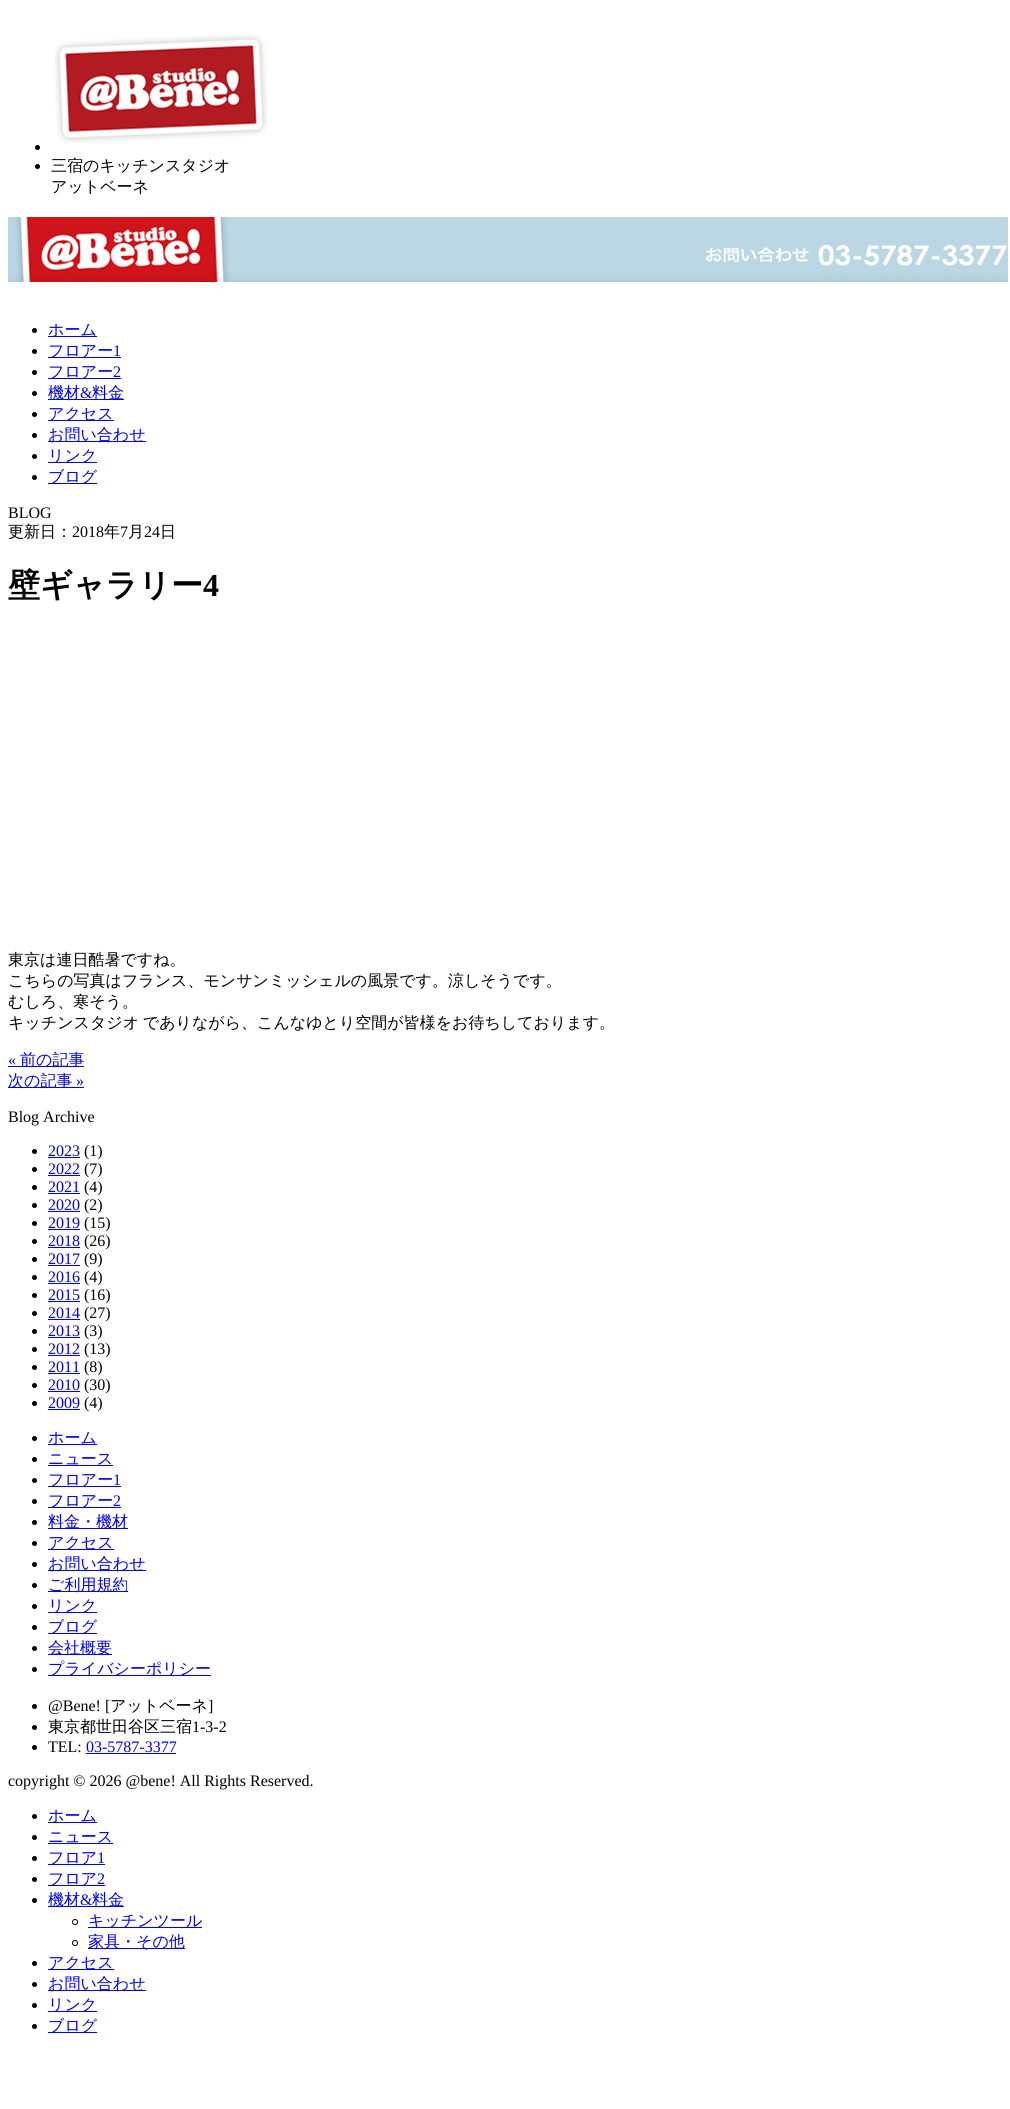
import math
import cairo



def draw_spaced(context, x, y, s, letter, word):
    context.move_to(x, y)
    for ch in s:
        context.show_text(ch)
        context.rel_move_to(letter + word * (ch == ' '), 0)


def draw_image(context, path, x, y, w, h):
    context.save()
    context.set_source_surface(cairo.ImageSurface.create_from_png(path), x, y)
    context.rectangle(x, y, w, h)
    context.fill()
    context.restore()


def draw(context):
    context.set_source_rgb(1, 1, 1)
    context.paint()
    draw_image(context, "images/1.png", 54, 34, 214, 109)
    context.set_source_rgb(0, 0, 0)
    context.arc(37.5, 147.5, 2.5, 0, 2 * math.pi)
    context.fill()
    context.arc(37.5, 166.5, 2.5, 0, 2 * math.pi)
    context.fill()
    draw_image(context, "images/2.png", 8, 217, 1000, 65)
    context.arc(34.5, 330.5, 2.5, 0, 2 * math.pi)
    context.fill()
    context.set_source_rgb(0, 0, 238 / 255)
    context.rectangle(48, 336, 49, 1)
    context.fill()
    context.set_source_rgb(0, 0, 0)
    context.arc(34.5, 351.5, 2.5, 0, 2 * math.pi)
    context.fill()
    context.set_source_rgb(0, 0, 238 / 255)
    context.rectangle(48, 357, 73, 1)
    context.fill()
    context.set_source_rgb(0, 0, 0)
    context.arc(34.5, 372.5, 2.5, 0, 2 * math.pi)
    context.fill()
    context.set_source_rgb(0, 0, 238 / 255)
    context.rectangle(48, 378, 73, 1)
    context.fill()
    context.set_source_rgb(0, 0, 0)
    context.arc(34.5, 393.5, 2.5, 0, 2 * math.pi)
    context.fill()
    context.set_source_rgb(0, 0, 238 / 255)
    context.rectangle(48, 399, 76, 1)
    context.fill()
    context.set_source_rgb(0, 0, 0)
    context.arc(34.5, 414.5, 2.5, 0, 2 * math.pi)
    context.fill()
    context.set_source_rgb(0, 0, 238 / 255)
    context.rectangle(48, 420, 66, 1)
    context.fill()
    context.set_source_rgb(0, 0, 0)
    context.arc(34.5, 435.5, 2.5, 0, 2 * math.pi)
    context.fill()
    context.set_source_rgb(0, 0, 238 / 255)
    context.rectangle(48, 441, 98, 1)
    context.fill()
    context.set_source_rgb(0, 0, 0)
    context.arc(34.5, 456.5, 2.5, 0, 2 * math.pi)
    context.fill()
    context.set_source_rgb(0, 0, 238 / 255)
    context.rectangle(48, 462, 49, 1)
    context.fill()
    context.set_source_rgb(0, 0, 0)
    context.arc(34.5, 477.5, 2.5, 0, 2 * math.pi)
    context.fill()
    context.set_source_rgb(0, 0, 238 / 255)
    context.rectangle(48, 483, 49, 1)
    context.fill()
    context.rectangle(8, 1066, 76, 1)
    context.fill()
    context.rectangle(8, 1087, 76, 1)
    context.fill()
    context.set_source_rgb(0, 0, 0)
    context.arc(34.5, 1151.5, 2.5, 0, 2 * math.pi)
    context.fill()
    context.set_source_rgb(0, 0, 238 / 255)
    context.rectangle(48, 1157, 32, 1)
    context.fill()
    context.set_source_rgb(0, 0, 0)
    context.arc(34.5, 1169.5, 2.5, 0, 2 * math.pi)
    context.fill()
    context.set_source_rgb(0, 0, 238 / 255)
    context.rectangle(48, 1175, 32, 1)
    context.fill()
    context.set_source_rgb(0, 0, 0)
    context.arc(34.5, 1187.5, 2.5, 0, 2 * math.pi)
    context.fill()
    context.set_source_rgb(0, 0, 238 / 255)
    context.rectangle(48, 1193, 32, 1)
    context.fill()
    context.set_source_rgb(0, 0, 0)
    context.arc(34.5, 1205.5, 2.5, 0, 2 * math.pi)
    context.fill()
    context.set_source_rgb(0, 0, 238 / 255)
    context.rectangle(48, 1211, 32, 1)
    context.fill()
    context.set_source_rgb(0, 0, 0)
    context.arc(34.5, 1223.5, 2.5, 0, 2 * math.pi)
    context.fill()
    context.set_source_rgb(0, 0, 238 / 255)
    context.rectangle(48, 1229, 32, 1)
    context.fill()
    context.set_source_rgb(0, 0, 0)
    context.arc(34.5, 1241.5, 2.5, 0, 2 * math.pi)
    context.fill()
    context.set_source_rgb(0, 0, 238 / 255)
    context.rectangle(48, 1247, 32, 1)
    context.fill()
    context.set_source_rgb(0, 0, 0)
    context.arc(34.5, 1259.5, 2.5, 0, 2 * math.pi)
    context.fill()
    context.set_source_rgb(0, 0, 238 / 255)
    context.rectangle(48, 1265, 32, 1)
    context.fill()
    context.set_source_rgb(0, 0, 0)
    context.arc(34.5, 1277.5, 2.5, 0, 2 * math.pi)
    context.fill()
    context.set_source_rgb(0, 0, 238 / 255)
    context.rectangle(48, 1283, 32, 1)
    context.fill()
    context.set_source_rgb(0, 0, 0)
    context.arc(34.5, 1295.5, 2.5, 0, 2 * math.pi)
    context.fill()
    context.set_source_rgb(0, 0, 238 / 255)
    context.rectangle(48, 1301, 32, 1)
    context.fill()
    context.set_source_rgb(0, 0, 0)
    context.arc(34.5, 1313.5, 2.5, 0, 2 * math.pi)
    context.fill()
    context.set_source_rgb(0, 0, 238 / 255)
    context.rectangle(48, 1319, 32, 1)
    context.fill()
    context.set_source_rgb(0, 0, 0)
    context.arc(34.5, 1331.5, 2.5, 0, 2 * math.pi)
    context.fill()
    context.set_source_rgb(0, 0, 238 / 255)
    context.rectangle(48, 1337, 32, 1)
    context.fill()
    context.set_source_rgb(0, 0, 0)
    context.arc(34.5, 1349.5, 2.5, 0, 2 * math.pi)
    context.fill()
    context.set_source_rgb(0, 0, 238 / 255)
    context.rectangle(48, 1355, 32, 1)
    context.fill()
    context.set_source_rgb(0, 0, 0)
    context.arc(34.5, 1367.5, 2.5, 0, 2 * math.pi)
    context.fill()
    context.set_source_rgb(0, 0, 238 / 255)
    context.rectangle(48, 1373, 32, 1)
    context.fill()
    context.set_source_rgb(0, 0, 0)
    context.arc(34.5, 1385.5, 2.5, 0, 2 * math.pi)
    context.fill()
    context.set_source_rgb(0, 0, 238 / 255)
    context.rectangle(48, 1391, 32, 1)
    context.fill()
    context.set_source_rgb(0, 0, 0)
    context.arc(34.5, 1403.5, 2.5, 0, 2 * math.pi)
    context.fill()
    context.set_source_rgb(0, 0, 238 / 255)
    context.rectangle(48, 1409, 32, 1)
    context.fill()
    context.set_source_rgb(0, 0, 0)
    context.arc(34.5, 1438.5, 2.5, 0, 2 * math.pi)
    context.fill()
    context.set_source_rgb(0, 0, 238 / 255)
    context.rectangle(48, 1444, 49, 1)
    context.fill()
    context.set_source_rgb(0, 0, 0)
    context.arc(34.5, 1459.5, 2.5, 0, 2 * math.pi)
    context.fill()
    context.set_source_rgb(0, 0, 238 / 255)
    context.rectangle(48, 1465, 65, 1)
    context.fill()
    context.set_source_rgb(0, 0, 0)
    context.arc(34.5, 1480.5, 2.5, 0, 2 * math.pi)
    context.fill()
    context.set_source_rgb(0, 0, 238 / 255)
    context.rectangle(48, 1486, 73, 1)
    context.fill()
    context.set_source_rgb(0, 0, 0)
    context.arc(34.5, 1501.5, 2.5, 0, 2 * math.pi)
    context.fill()
    context.set_source_rgb(0, 0, 238 / 255)
    context.rectangle(48, 1507, 73, 1)
    context.fill()
    context.set_source_rgb(0, 0, 0)
    context.arc(34.5, 1522.5, 2.5, 0, 2 * math.pi)
    context.fill()
    context.set_source_rgb(0, 0, 238 / 255)
    context.rectangle(48, 1528, 80, 1)
    context.fill()
    context.set_source_rgb(0, 0, 0)
    context.arc(34.5, 1543.5, 2.5, 0, 2 * math.pi)
    context.fill()
    context.set_source_rgb(0, 0, 238 / 255)
    context.rectangle(48, 1549, 66, 1)
    context.fill()
    context.set_source_rgb(0, 0, 0)
    context.arc(34.5, 1564.5, 2.5, 0, 2 * math.pi)
    context.fill()
    context.set_source_rgb(0, 0, 238 / 255)
    context.rectangle(48, 1570, 98, 1)
    context.fill()
    context.set_source_rgb(0, 0, 0)
    context.arc(34.5, 1585.5, 2.5, 0, 2 * math.pi)
    context.fill()
    context.set_source_rgb(0, 0, 238 / 255)
    context.rectangle(48, 1591, 80, 1)
    context.fill()
    context.set_source_rgb(0, 0, 0)
    context.arc(34.5, 1606.5, 2.5, 0, 2 * math.pi)
    context.fill()
    context.set_source_rgb(0, 0, 238 / 255)
    context.rectangle(48, 1612, 49, 1)
    context.fill()
    context.set_source_rgb(0, 0, 0)
    context.arc(34.5, 1627.5, 2.5, 0, 2 * math.pi)
    context.fill()
    context.set_source_rgb(0, 0, 238 / 255)
    context.rectangle(48, 1633, 49, 1)
    context.fill()
    context.set_source_rgb(0, 0, 0)
    context.arc(34.5, 1648.5, 2.5, 0, 2 * math.pi)
    context.fill()
    context.set_source_rgb(0, 0, 238 / 255)
    context.rectangle(48, 1654, 64, 1)
    context.fill()
    context.set_source_rgb(0, 0, 0)
    context.arc(34.5, 1669.5, 2.5, 0, 2 * math.pi)
    context.fill()
    context.set_source_rgb(0, 0, 238 / 255)
    context.rectangle(48, 1675, 163, 1)
    context.fill()
    context.set_source_rgb(0, 0, 0)
    context.arc(34.5, 1706.5, 2.5, 0, 2 * math.pi)
    context.fill()
    context.arc(34.5, 1727.5, 2.5, 0, 2 * math.pi)
    context.fill()
    context.arc(34.5, 1747.5, 2.5, 0, 2 * math.pi)
    context.fill()
    context.set_source_rgb(0, 0, 238 / 255)
    context.rectangle(86, 1753, 90, 1)
    context.fill()
    context.set_source_rgb(0, 0, 0)
    context.arc(34.5, 1816.5, 2.5, 0, 2 * math.pi)
    context.fill()
    context.set_source_rgb(0, 0, 238 / 255)
    context.rectangle(48, 1822, 49, 1)
    context.fill()
    context.set_source_rgb(0, 0, 0)
    context.arc(34.5, 1837.5, 2.5, 0, 2 * math.pi)
    context.fill()
    context.set_source_rgb(0, 0, 238 / 255)
    context.rectangle(48, 1843, 65, 1)
    context.fill()
    context.set_source_rgb(0, 0, 0)
    context.arc(34.5, 1858.5, 2.5, 0, 2 * math.pi)
    context.fill()
    context.set_source_rgb(0, 0, 238 / 255)
    context.rectangle(48, 1864, 57, 1)
    context.fill()
    context.set_source_rgb(0, 0, 0)
    context.arc(34.5, 1879.5, 2.5, 0, 2 * math.pi)
    context.fill()
    context.set_source_rgb(0, 0, 238 / 255)
    context.rectangle(48, 1885, 57, 1)
    context.fill()
    context.set_source_rgb(0, 0, 0)
    context.arc(34.5, 1900.5, 2.5, 0, 2 * math.pi)
    context.fill()
    context.set_source_rgb(0, 0, 238 / 255)
    context.rectangle(48, 1906, 76, 1)
    context.fill()
    context.arc(75, 1922, 2.5, 0, 2 * math.pi)
    context.set_source_rgb(0, 0, 0)
    context.set_line_width(1)
    context.stroke()
    context.set_source_rgb(0, 0, 238 / 255)
    context.rectangle(88, 1927, 114, 1)
    context.fill()
    context.arc(75, 1943, 2.5, 0, 2 * math.pi)
    context.set_source_rgb(0, 0, 0)
    context.stroke()
    context.set_source_rgb(0, 0, 238 / 255)
    context.rectangle(88, 1948, 97, 1)
    context.fill()
    context.set_source_rgb(0, 0, 0)
    context.arc(34.5, 1963.5, 2.5, 0, 2 * math.pi)
    context.fill()
    context.set_source_rgb(0, 0, 238 / 255)
    context.rectangle(48, 1969, 66, 1)
    context.fill()
    context.set_source_rgb(0, 0, 0)
    context.arc(34.5, 1984.5, 2.5, 0, 2 * math.pi)
    context.fill()
    context.set_source_rgb(0, 0, 238 / 255)
    context.rectangle(48, 1990, 98, 1)
    context.fill()
    context.set_source_rgb(0, 0, 0)
    context.arc(34.5, 2005.5, 2.5, 0, 2 * math.pi)
    context.fill()
    context.set_source_rgb(0, 0, 238 / 255)
    context.rectangle(48, 2011, 49, 1)
    context.fill()
    context.set_source_rgb(0, 0, 0)
    context.arc(34.5, 2026.5, 2.5, 0, 2 * math.pi)
    context.fill()
    context.set_source_rgb(0, 0, 238 / 255)
    context.rectangle(48, 2032, 49, 1)
    context.fill()
    context.select_font_face("WenQuanYi Zen Hei Medium")
    context.set_font_size(16)
    context.set_source_rgb(0, 0, 0)
    context.move_to(51, 171)
    context.show_text("三宿のキッチンスタジオ")
    context.move_to(51, 192)
    context.show_text("アットベーネ")
    context.set_source_rgb(0, 0, 238 / 255)
    context.move_to(48, 335)
    context.show_text("ホーム")
    context.move_to(48, 356)
    context.show_text("フロアー")
    context.select_font_face("Liberation Serif")
    context.move_to(113, 356)
    context.show_text("1")
    context.select_font_face("WenQuanYi Zen Hei Medium")
    context.move_to(48, 377)
    context.show_text("フロアー")
    context.select_font_face("Liberation Serif")
    context.move_to(113, 377)
    context.show_text("2")
    context.select_font_face("WenQuanYi Zen Hei Medium")
    context.move_to(48, 398)
    context.show_text("機材")
    context.select_font_face("Liberation Serif")
    context.move_to(80, 398)
    context.show_text("&")
    context.select_font_face("WenQuanYi Zen Hei Medium")
    context.move_to(92, 398)
    context.show_text("料金")
    context.move_to(48, 419)
    context.show_text("アクセス")
    context.move_to(48, 440)
    context.show_text("お問い合わせ")
    context.move_to(48, 461)
    context.show_text("リンク")
    context.move_to(48, 482)
    context.show_text("ブログ")
    context.select_font_face("Liberation Serif")
    context.set_source_rgb(0, 0, 0)
    context.move_to(8, 518)
    context.show_text("BLOG")
    context.select_font_face("WenQuanYi Zen Hei Medium")
    context.move_to(8, 537)
    context.show_text("更新日：")
    context.select_font_face("Liberation Serif")
    context.move_to(72, 537)
    context.show_text("2018")
    context.select_font_face("WenQuanYi Zen Hei Medium")
    context.move_to(104, 537)
    context.show_text("年")
    context.select_font_face("Liberation Serif")
    context.move_to(120, 537)
    context.show_text("7")
    context.select_font_face("WenQuanYi Zen Hei Medium")
    context.move_to(128, 537)
    context.show_text("月")
    context.select_font_face("Liberation Serif")
    context.move_to(144, 537)
    context.show_text("24")
    context.select_font_face("WenQuanYi Zen Hei Medium")
    context.move_to(160, 537)
    context.show_text("日")
    context.select_font_face("WenQuanYi Zen Hei", cairo.FontSlant.NORMAL, cairo.FontWeight.BOLD)
    context.set_font_size(32)
    context.move_to(8, 596)
    context.show_text("壁ギャラリー")
    context.select_font_face("Liberation Serif", cairo.FontSlant.NORMAL, cairo.FontWeight.BOLD)
    context.move_to(203, 596)
    context.show_text("4")
    context.select_font_face("WenQuanYi Zen Hei Medium")
    context.set_font_size(16)
    context.move_to(8, 965)
    context.show_text("東京は連日酷暑ですね。")
    context.move_to(8, 986)
    context.show_text("こちらの写真はフランス、モンサンミッシェルの風景です。涼しそうです。")
    context.move_to(8, 1007)
    context.show_text("むしろ、寒そう。")
    draw_spaced(context, 8, 1028, "キッチンスタジオ でありながら、こんなゆとり空間が皆様をお待ちしております。", 0, -1)
    context.select_font_face("Liberation Serif")
    context.set_source_rgb(0, 0, 238 / 255)
    context.move_to(8, 1065)
    context.show_text("«")
    context.select_font_face("WenQuanYi Zen Hei Medium")
    context.move_to(20, 1065)
    context.show_text("前の記事")
    context.move_to(8, 1086)
    context.show_text("次の記事")
    context.select_font_face("Liberation Serif")
    context.move_to(76, 1086)
    context.show_text("»")
    context.set_source_rgb(0, 0, 0)
    context.move_to(8, 1122)
    context.show_text("Blog Archive")
    context.set_source_rgb(0, 0, 238 / 255)
    context.move_to(48, 1156)
    context.show_text("2023")
    context.set_source_rgb(0, 0, 0)
    context.move_to(84, 1156)
    context.show_text("(1)")
    context.set_source_rgb(0, 0, 238 / 255)
    context.move_to(48, 1174)
    context.show_text("2022")
    context.set_source_rgb(0, 0, 0)
    context.move_to(84, 1174)
    context.show_text("(7)")
    context.set_source_rgb(0, 0, 238 / 255)
    context.move_to(48, 1192)
    context.show_text("2021")
    context.set_source_rgb(0, 0, 0)
    context.move_to(84, 1192)
    context.show_text("(4)")
    context.set_source_rgb(0, 0, 238 / 255)
    context.move_to(48, 1210)
    context.show_text("2020")
    context.set_source_rgb(0, 0, 0)
    context.move_to(84, 1210)
    context.show_text("(2)")
    context.set_source_rgb(0, 0, 238 / 255)
    context.move_to(48, 1228)
    context.show_text("2019")
    context.set_source_rgb(0, 0, 0)
    context.move_to(84, 1228)
    context.show_text("(15)")
    context.set_source_rgb(0, 0, 238 / 255)
    context.move_to(48, 1246)
    context.show_text("2018")
    context.set_source_rgb(0, 0, 0)
    context.move_to(84, 1246)
    context.show_text("(26)")
    context.set_source_rgb(0, 0, 238 / 255)
    context.move_to(48, 1264)
    context.show_text("2017")
    context.set_source_rgb(0, 0, 0)
    context.move_to(84, 1264)
    context.show_text("(9)")
    context.set_source_rgb(0, 0, 238 / 255)
    context.move_to(48, 1282)
    context.show_text("2016")
    context.set_source_rgb(0, 0, 0)
    context.move_to(84, 1282)
    context.show_text("(4)")
    context.set_source_rgb(0, 0, 238 / 255)
    context.move_to(48, 1300)
    context.show_text("2015")
    context.set_source_rgb(0, 0, 0)
    context.move_to(84, 1300)
    context.show_text("(16)")
    context.set_source_rgb(0, 0, 238 / 255)
    context.move_to(48, 1318)
    context.show_text("2014")
    context.set_source_rgb(0, 0, 0)
    context.move_to(84, 1318)
    context.show_text("(27)")
    context.set_source_rgb(0, 0, 238 / 255)
    context.move_to(48, 1336)
    context.show_text("2013")
    context.set_source_rgb(0, 0, 0)
    context.move_to(84, 1336)
    context.show_text("(3)")
    context.set_source_rgb(0, 0, 238 / 255)
    context.move_to(48, 1354)
    context.show_text("2012")
    context.set_source_rgb(0, 0, 0)
    context.move_to(84, 1354)
    context.show_text("(13)")
    context.set_source_rgb(0, 0, 238 / 255)
    context.move_to(48, 1372)
    context.show_text("2011")
    context.set_source_rgb(0, 0, 0)
    context.move_to(84, 1372)
    context.show_text("(8)")
    context.set_source_rgb(0, 0, 238 / 255)
    context.move_to(48, 1390)
    context.show_text("2010")
    context.set_source_rgb(0, 0, 0)
    context.move_to(84, 1390)
    context.show_text("(30)")
    context.set_source_rgb(0, 0, 238 / 255)
    context.move_to(48, 1408)
    context.show_text("2009")
    context.set_source_rgb(0, 0, 0)
    context.move_to(84, 1408)
    context.show_text("(4)")
    context.select_font_face("WenQuanYi Zen Hei Medium")
    context.set_source_rgb(0, 0, 238 / 255)
    context.move_to(48, 1443)
    context.show_text("ホーム")
    context.move_to(48, 1464)
    context.show_text("ニュース")
    context.move_to(48, 1485)
    context.show_text("フロアー")
    context.select_font_face("Liberation Serif")
    context.move_to(113, 1485)
    context.show_text("1")
    context.select_font_face("WenQuanYi Zen Hei Medium")
    context.move_to(48, 1506)
    context.show_text("フロアー")
    context.select_font_face("Liberation Serif")
    context.move_to(113, 1506)
    context.show_text("2")
    context.select_font_face("WenQuanYi Zen Hei Medium")
    context.move_to(48, 1527)
    context.show_text("料金・機材")
    context.move_to(48, 1548)
    context.show_text("アクセス")
    context.move_to(48, 1569)
    context.show_text("お問い合わせ")
    context.move_to(48, 1590)
    context.show_text("ご利用規約")
    context.move_to(48, 1611)
    context.show_text("リンク")
    context.move_to(48, 1632)
    context.show_text("ブログ")
    context.move_to(48, 1653)
    context.show_text("会社概要")
    context.move_to(48, 1674)
    context.show_text("プライバシーポリシー")
    context.select_font_face("Liberation Serif")
    context.set_source_rgb(0, 0, 0)
    context.move_to(48, 1711)
    context.show_text("@Bene! [")
    context.select_font_face("WenQuanYi Zen Hei Medium")
    context.move_to(110, 1711)
    context.show_text("アットベーネ")
    context.select_font_face("Liberation Serif")
    context.move_to(208, 1711)
    context.show_text("]")
    context.select_font_face("WenQuanYi Zen Hei Medium")
    context.move_to(48, 1732)
    context.show_text("東京都世田谷区三宿")
    context.select_font_face("Liberation Serif")
    context.move_to(192, 1732)
    context.show_text("1-3-2")
    context.move_to(48, 1752)
    context.show_text("TEL:")
    context.set_source_rgb(0, 0, 238 / 255)
    context.move_to(86, 1752)
    context.show_text("03-5787-3377")
    context.set_source_rgb(0, 0, 0)
    context.move_to(8, 1786)
    context.show_text("copyright © 2026 @bene! All Rights Reserved.")
    context.select_font_face("WenQuanYi Zen Hei Medium")
    context.set_source_rgb(0, 0, 238 / 255)
    context.move_to(48, 1821)
    context.show_text("ホーム")
    context.move_to(48, 1842)
    context.show_text("ニュース")
    context.move_to(48, 1863)
    context.show_text("フロア")
    context.select_font_face("Liberation Serif")
    context.move_to(97, 1863)
    context.show_text("1")
    context.select_font_face("WenQuanYi Zen Hei Medium")
    context.move_to(48, 1884)
    context.show_text("フロア")
    context.select_font_face("Liberation Serif")
    context.move_to(97, 1884)
    context.show_text("2")
    context.select_font_face("WenQuanYi Zen Hei Medium")
    context.move_to(48, 1905)
    context.show_text("機材")
    context.select_font_face("Liberation Serif")
    context.move_to(80, 1905)
    context.show_text("&")
    context.select_font_face("WenQuanYi Zen Hei Medium")
    context.move_to(92, 1905)
    context.show_text("料金")
    context.move_to(88, 1926)
    context.show_text("キッチンツール")
    context.move_to(88, 1947)
    context.show_text("家具・その他")
    context.move_to(48, 1968)
    context.show_text("アクセス")
    context.move_to(48, 1989)
    context.show_text("お問い合わせ")
    context.move_to(48, 2010)
    context.show_text("リンク")
    context.move_to(48, 2031)
    context.show_text("ブログ")


surface = cairo.ImageSurface(cairo.Format.RGB24, 1010, 2109)
context = cairo.Context(surface)
options = cairo.FontOptions()
options.set_hint_metrics(cairo.HintMetrics.OFF)
options.set_hint_style(cairo.HintStyle.NONE)
context.set_font_options(options)
context.set_miter_limit(4)
draw(context)
surface.write_to_png("out.png")
